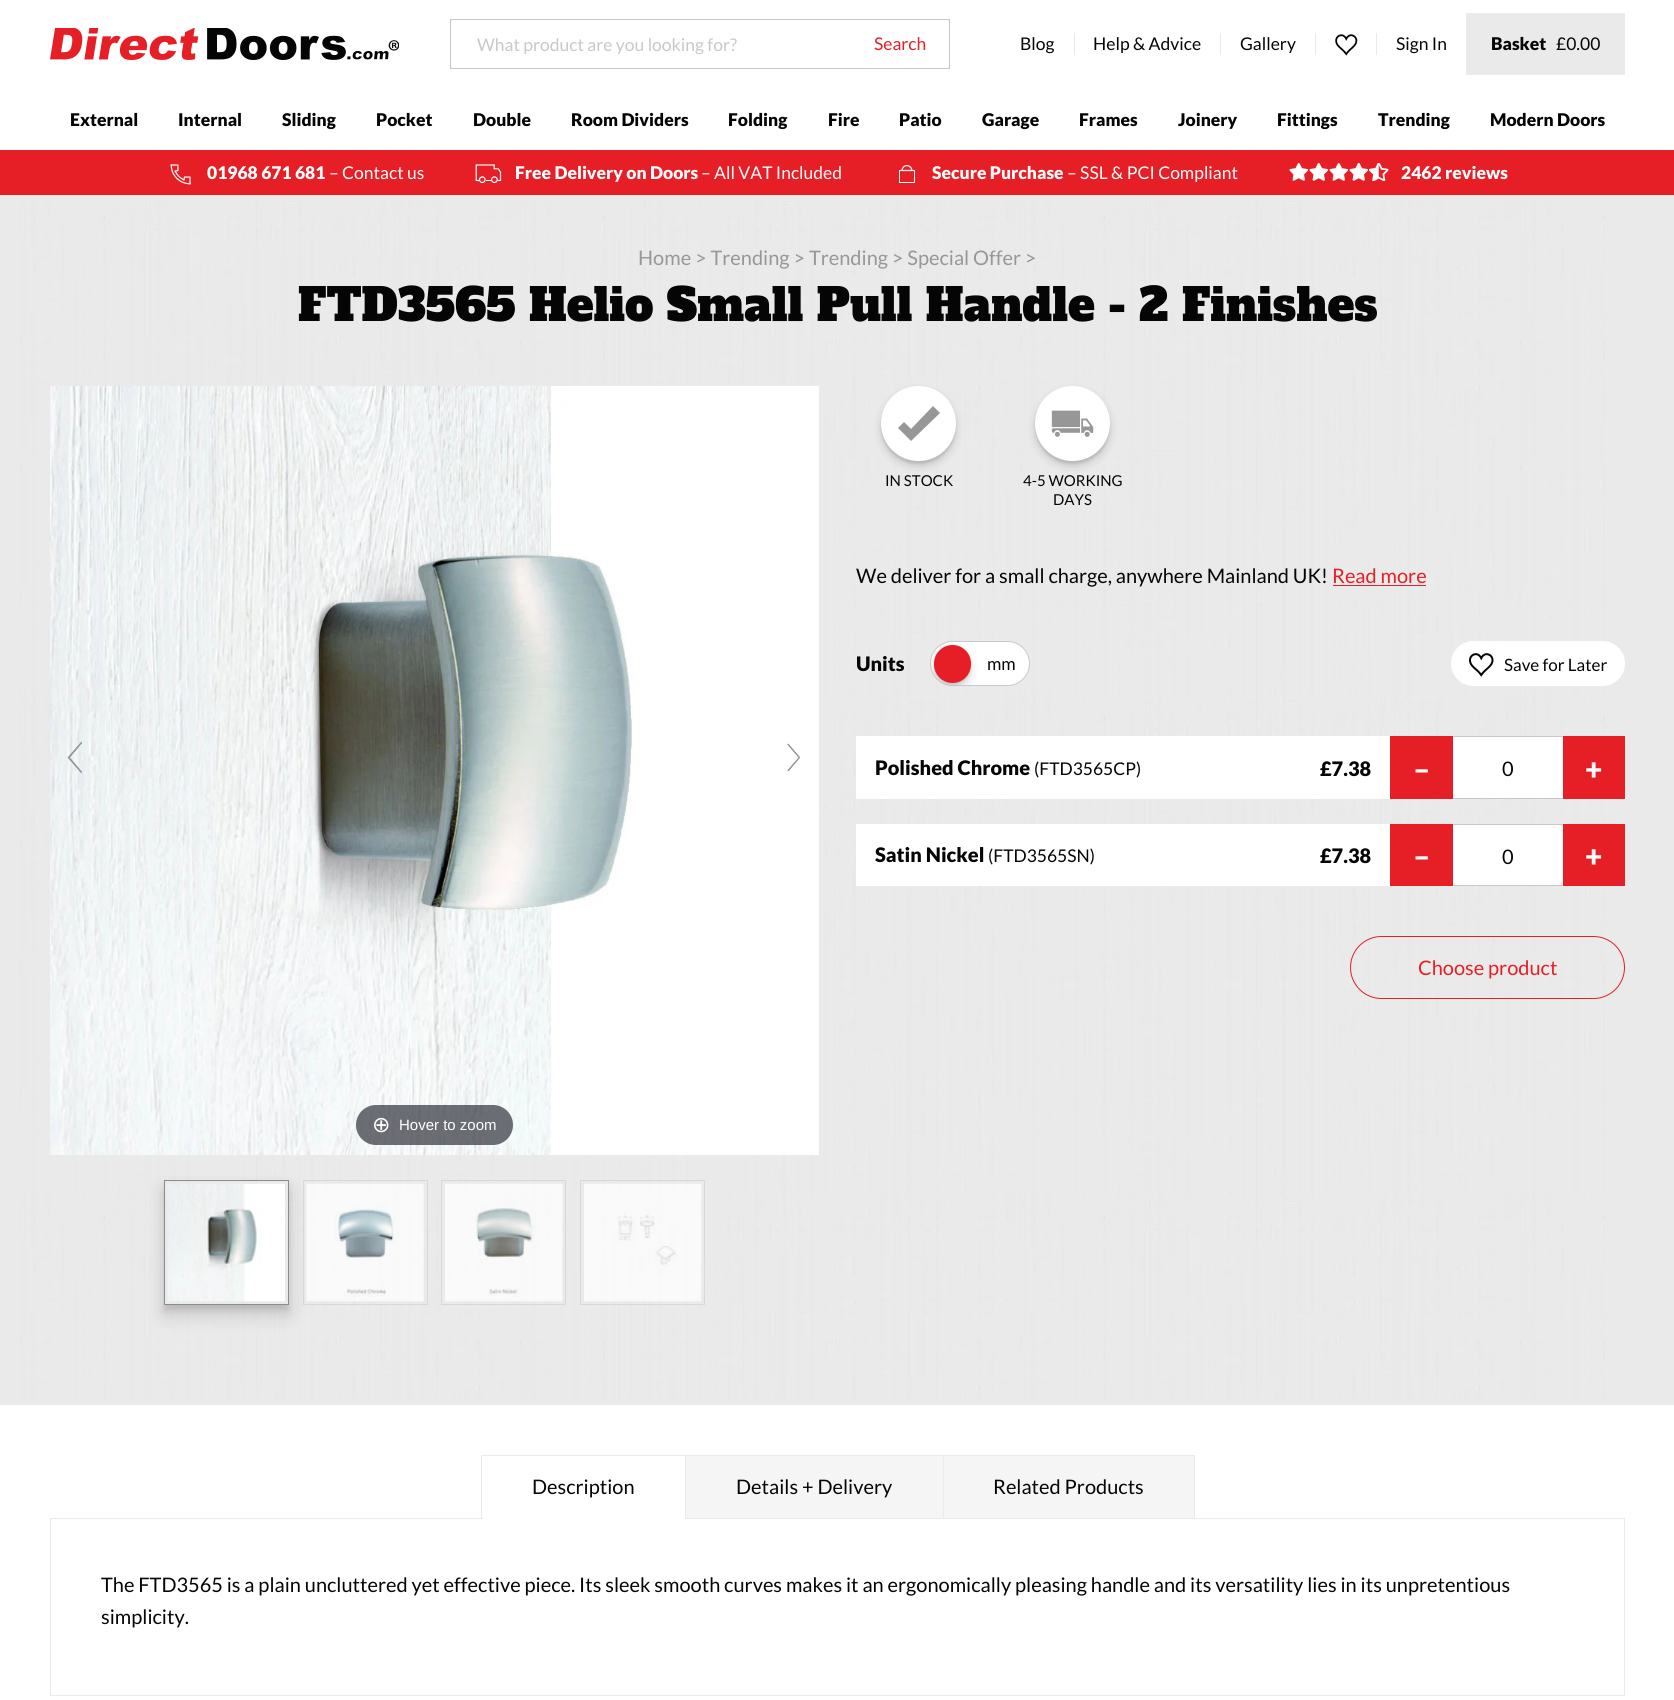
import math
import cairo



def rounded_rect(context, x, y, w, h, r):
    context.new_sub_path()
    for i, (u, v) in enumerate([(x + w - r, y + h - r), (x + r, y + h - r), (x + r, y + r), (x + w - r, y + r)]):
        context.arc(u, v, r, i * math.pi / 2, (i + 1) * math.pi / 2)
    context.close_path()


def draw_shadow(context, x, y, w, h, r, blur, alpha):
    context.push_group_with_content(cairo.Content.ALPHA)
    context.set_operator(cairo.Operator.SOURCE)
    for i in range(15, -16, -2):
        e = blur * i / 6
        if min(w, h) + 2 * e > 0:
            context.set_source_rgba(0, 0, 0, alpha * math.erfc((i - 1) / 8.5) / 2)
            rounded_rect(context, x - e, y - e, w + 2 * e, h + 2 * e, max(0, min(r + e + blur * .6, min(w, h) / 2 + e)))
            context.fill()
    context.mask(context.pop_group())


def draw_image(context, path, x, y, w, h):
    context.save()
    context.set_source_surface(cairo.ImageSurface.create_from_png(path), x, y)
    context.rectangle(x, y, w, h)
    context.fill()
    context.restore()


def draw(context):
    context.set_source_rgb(1, 1, 1)
    context.paint()
    context.set_source_rgb(245 / 255, 245 / 255, 245 / 255)
    context.rectangle(944, 1456, 250, 62)
    context.fill()
    context.rectangle(686, 1456, 257, 62)
    context.fill()
    draw_image(context, "images/1.png", 50, 28, 349, 32)
    context.set_source_rgb(200 / 255, 200 / 255, 200 / 255)
    context.rectangle(450, 19, 500, 1)
    context.fill()
    context.rectangle(450, 68, 400, 1)
    context.fill()
    context.rectangle(450, 19, 1, 50)
    context.fill()
    context.rectangle(949, 19, 1, 50)
    context.fill()
    context.rectangle(850, 68, 100, 1)
    context.fill()
    context.set_source_rgb(234 / 255, 234 / 255, 234 / 255)
    context.rectangle(1074, 33, 1, 22)
    context.fill()
    context.rectangle(1220, 33, 1, 22)
    context.fill()
    context.rectangle(1315, 33, 1, 22)
    context.fill()
    draw_image(context, "images/2.png", 1335, 34, 23, 22)
    context.rectangle(1376, 33, 1, 22)
    context.fill()
    context.rectangle(1466, 13, 159, 62)
    context.fill()
    context.set_source_rgb(230 / 255, 30 / 255, 38 / 255)
    context.rectangle(0, 150, 1674, 45)
    context.fill()
    draw_image(context, "images/3.png", 170, 164, 21, 21)
    draw_image(context, "images/4.png", 475, 164, 27, 20)
    context.rectangle(899.5, 170.5, 15, 12)
    context.set_source_rgb(1, 1, 1)
    context.set_line_width(1)
    context.stroke()
    context.new_path()
    context.move_to(912, 170.5)
    context.curve_to(911, 164, 902.5, 164, 902, 170.5)
    context.close_path()
    context.set_line_width(1.2)
    context.stroke()
    draw_image(context, "images/5.png", 1289, 163, 19, 18)
    draw_image(context, "images/5.png", 1309, 163, 19, 18)
    draw_image(context, "images/5.png", 1329, 163, 19, 18)
    draw_image(context, "images/5.png", 1349, 163, 19, 18)
    draw_image(context, "images/6.png", 1369, 163, 20, 18)
    context.set_source_rgb(234 / 255, 234 / 255, 234 / 255)
    context.rectangle(0, 195, 1674, 1210)
    context.fill()
    draw_image(context, "images/7.png", 20, 201, 1585, 1199)
    context.set_source_rgb(5 / 255, 5 / 255, 5 / 255)
    draw_shadow(context, 881, 389, 75, 75, 37.5, 1, 0.1)
    draw_shadow(context, 881, 391, 75, 75, 37.5, 4.5, 0.15)
    context.set_source_rgb(1, 1, 1)
    context.arc(918.5, 423.5, 37.5, 0, 2 * math.pi)
    context.fill()
    context.set_source_rgb(151 / 255, 151 / 255, 151 / 255)
    context.new_path()
    context.move_to(898, 428)
    context.line_to(904, 422)
    context.line_to(911, 429)
    context.line_to(933, 406)
    context.line_to(940, 413)
    context.line_to(911, 441)
    context.line_to(898, 428)
    context.fill()
    context.set_source_rgb(5 / 255, 5 / 255, 5 / 255)
    draw_shadow(context, 1035, 389, 75, 75, 37.5, 1, 0.1)
    draw_shadow(context, 1035, 391, 75, 75, 37.5, 4.5, 0.15)
    context.set_source_rgb(1, 1, 1)
    context.arc(1072.5, 423.5, 37.5, 0, 2 * math.pi)
    context.fill()
    draw_image(context, "images/8.png", 1051, 410, 43, 27)
    context.set_source_rgb(230 / 255, 30 / 255, 38 / 255)
    context.rectangle(1333, 585, 93, 1)
    context.fill()
    context.set_source_rgb(1, 1, 1)
    rounded_rect(context, 930.5, 641.5, 99, 44, 22)
    context.fill_preserve()
    context.set_source_rgb(200 / 255, 200 / 255, 200 / 255)
    context.set_line_width(1)
    context.stroke()
    context.set_source_rgb(5 / 255, 5 / 255, 5 / 255)
    draw_shadow(context, 934, 648, 37, 37, 18.5, 1, 0.1)
    context.save()
    rounded_rect(context, 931, 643, 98, 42, 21)
    context.clip()
    draw_shadow(context, 934, 650, 37, 38, 18.5, 4.5, 0.15)
    context.restore()
    context.set_source_rgb(230 / 255, 30 / 255, 38 / 255)
    rounded_rect(context, 934, 645, 37, 38, 18.5)
    context.fill()
    context.set_source_rgb(1, 1, 1)
    rounded_rect(context, 1451, 641, 174, 45, 22.5)
    context.fill()
    draw_image(context, "images/9.png", 1469, 653, 25, 24)
    context.rectangle(856, 736, 707, 63)
    context.fill()
    context.set_source_rgb(230 / 255, 30 / 255, 38 / 255)
    context.rectangle(1390, 736, 63, 63)
    context.fill()
    context.set_source_rgb(200 / 255, 200 / 255, 200 / 255)
    context.rectangle(1453, 736, 110, 1)
    context.fill()
    context.rectangle(1453, 798, 110, 1)
    context.fill()
    context.set_source_rgb(230 / 255, 30 / 255, 38 / 255)
    context.rectangle(1563, 736, 62, 63)
    context.fill()
    context.set_source_rgb(1, 1, 1)
    context.rectangle(856, 824, 707, 62)
    context.fill()
    context.set_source_rgb(230 / 255, 30 / 255, 38 / 255)
    context.rectangle(1390, 824, 63, 62)
    context.fill()
    context.set_source_rgb(200 / 255, 200 / 255, 200 / 255)
    context.rectangle(1453, 824, 110, 1)
    context.fill()
    context.rectangle(1453, 885, 110, 1)
    context.fill()
    context.set_source_rgb(230 / 255, 30 / 255, 38 / 255)
    context.rectangle(1563, 824, 62, 62)
    context.fill()
    rounded_rect(context, 1350.5, 936.5, 274, 62, 31)
    context.stroke()
    draw_image(context, "images/12.png", 50, 386, 769, 769)
    draw_image(context, "images/10.png", 67, 742, 15, 31)
    draw_image(context, "images/11.png", 787, 743, 14, 29)
    context.set_source_rgba(49 / 255, 51 / 255, 61 / 255, 0.7)
    rounded_rect(context, 356, 1105, 157, 40, 20)
    context.fill()
    context.save()
    context.set_fill_rule(cairo.FillRule.EVEN_ODD)
    context.new_path()
    context.move_to(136, 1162)
    context.line_to(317, 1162)
    context.line_to(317, 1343)
    context.line_to(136, 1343)
    context.close_path()
    context.move_to(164, 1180)
    context.line_to(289, 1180)
    context.line_to(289, 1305)
    context.line_to(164, 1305)
    context.close_path()
    context.clip()
    context.set_source_rgb(5 / 255, 5 / 255, 5 / 255)
    draw_shadow(context, 164, 1190, 125, 125, 0, 9, 0.15)
    context.restore()
    context.save()
    context.set_fill_rule(cairo.FillRule.EVEN_ODD)
    context.new_path()
    context.move_to(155, 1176)
    context.line_to(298, 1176)
    context.line_to(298, 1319)
    context.line_to(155, 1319)
    context.close_path()
    context.move_to(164, 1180)
    context.line_to(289, 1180)
    context.line_to(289, 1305)
    context.line_to(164, 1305)
    context.close_path()
    context.clip()
    context.set_source_rgb(5 / 255, 5 / 255, 5 / 255)
    draw_shadow(context, 164, 1185, 125, 125, 0, 2.5, 0.1)
    context.restore()
    context.rectangle(164.5, 1180.5, 124, 124)
    context.set_source_rgba(0, 0, 0, 0.4)
    context.stroke()
    draw_image(context, "images/13.png", 167, 1183, 118, 119)
    context.rectangle(303.5, 1180.5, 124, 124)
    context.set_source_rgba(0, 0, 0, 0.08)
    context.stroke()
    draw_image(context, "images/14.png", 306, 1183, 118, 119)
    context.rectangle(441.5, 1180.5, 124, 124)
    context.stroke()
    draw_image(context, "images/15.png", 445, 1183, 118, 119)
    context.rectangle(580.5, 1180.5, 124, 124)
    context.stroke()
    draw_image(context, "images/16.png", 584, 1183, 118, 119)
    context.set_source_rgb(234 / 255, 234 / 255, 234 / 255)
    context.rectangle(481, 1455, 205, 1)
    context.fill()
    context.set_source_rgb(235 / 255, 235 / 255, 235 / 255)
    context.rectangle(685, 1455, 1, 63)
    context.fill()
    context.set_source_rgb(234 / 255, 234 / 255, 234 / 255)
    context.rectangle(481, 1455, 1, 63)
    context.fill()
    context.rectangle(50.5, 1518.5, 1574, 177)
    context.stroke()
    context.set_source_rgb(1, 1, 1)
    context.rectangle(483, 1518, 202, 1)
    context.fill()
    context.set_source_rgb(234 / 255, 234 / 255, 234 / 255)
    context.rectangle(685, 1455, 259, 1)
    context.fill()
    context.set_source_rgb(235 / 255, 235 / 255, 235 / 255)
    context.rectangle(943, 1455, 1, 63)
    context.fill()
    context.set_source_rgb(234 / 255, 234 / 255, 234 / 255)
    context.rectangle(943, 1455, 252, 1)
    context.fill()
    context.rectangle(1194, 1455, 1, 63)
    context.fill()
    context.select_font_face("Lato")
    context.set_font_size(17.5)
    context.set_source_rgb(200 / 255, 200 / 255, 200 / 255)
    context.move_to(477, 51)
    context.show_text("What product are you looking for?")
    context.set_source_rgb(230 / 255, 30 / 255, 38 / 255)
    context.move_to(874, 50)
    context.show_text("Search")
    context.set_source_rgb(5 / 255, 5 / 255, 5 / 255)
    context.move_to(1020, 50)
    context.show_text("Blog")
    context.move_to(1093, 50)
    context.show_text("Help & Advice")
    context.move_to(1240, 50)
    context.show_text("Gallery")
    context.move_to(1396, 50)
    context.show_text("Sign In")
    context.select_font_face("Lato Black")
    context.move_to(1491, 50)
    context.show_text("Basket")
    context.select_font_face("Lato")
    context.move_to(1556, 50)
    context.show_text("£0.00")
    context.select_font_face("Lato Black")
    context.move_to(70, 126)
    context.show_text("External")
    context.move_to(178, 126)
    context.show_text("Internal")
    context.move_to(282, 126)
    context.show_text("Sliding")
    context.move_to(376, 126)
    context.show_text("Pocket")
    context.move_to(473, 126)
    context.show_text("Double")
    context.move_to(571, 126)
    context.show_text("Room Dividers")
    context.move_to(728, 126)
    context.show_text("Folding")
    context.move_to(828, 126)
    context.show_text("Fire")
    context.move_to(899, 126)
    context.show_text("Patio")
    context.move_to(982, 126)
    context.show_text("Garage")
    context.move_to(1079, 126)
    context.show_text("Frames")
    context.move_to(1178, 126)
    context.show_text("Joinery")
    context.move_to(1277, 126)
    context.show_text("Fittings")
    context.move_to(1378, 126)
    context.show_text("Trending")
    context.move_to(1490, 126)
    context.show_text("Modern Doors")
    context.set_source_rgb(1, 1, 1)
    context.move_to(207, 179)
    context.show_text("01968 671 681")
    context.select_font_face("Lato")
    context.move_to(329, 179)
    context.show_text("– Contact us")
    context.select_font_face("Lato Black")
    context.move_to(515, 179)
    context.show_text("Free Delivery on Doors")
    context.select_font_face("Lato")
    context.move_to(701, 179)
    context.show_text("– All VAT Included")
    context.select_font_face("Lato Black")
    context.move_to(932, 179)
    context.show_text("Secure Purchase")
    context.select_font_face("Lato")
    context.move_to(1067, 179)
    context.show_text("– SSL & PCI Compliant")
    context.select_font_face("Lato Black")
    context.move_to(1401, 179)
    context.show_text("2462 reviews")
    context.select_font_face("Lato")
    context.set_font_size(20)
    context.set_source_rgb(151 / 255, 151 / 255, 151 / 255)
    context.move_to(638, 265)
    context.show_text("Home > Trending > Trending > Special Offer >")
    context.select_font_face("Alfa Slab One")
    context.set_font_size(45)
    context.set_source_rgb(5 / 255, 5 / 255, 5 / 255)
    context.move_to(298, 321)
    context.show_text("FTD3565 Helio Small Pull Handle - 2 Finishes")
    context.select_font_face("Lato")
    context.set_font_size(15)
    context.move_to(885, 486)
    context.show_text("IN STOCK")
    context.move_to(1023, 486)
    context.show_text("4-5 WORKING")
    context.move_to(1053, 505)
    context.show_text("DAYS")
    context.set_font_size(20)
    context.move_to(856, 583)
    context.show_text("We deliver for a small charge, anywhere Mainland UK!")
    context.set_source_rgb(230 / 255, 30 / 255, 38 / 255)
    context.move_to(1332, 583)
    context.show_text("Read more")
    context.select_font_face("Lato Black")
    context.set_source_rgb(5 / 255, 5 / 255, 5 / 255)
    context.move_to(856, 671)
    context.show_text("Units")
    context.select_font_face("Lato")
    context.set_font_size(17.5)
    context.move_to(987, 670)
    context.show_text("mm")
    context.set_font_size(17)
    context.move_to(1504, 671)
    context.show_text("Save for Later")
    context.select_font_face("Lato Black")
    context.set_font_size(20)
    context.move_to(875, 775)
    context.show_text("Polished Chrome")
    context.select_font_face("Lato")
    context.set_font_size(17.5)
    context.move_to(1034, 775)
    context.show_text("(FTD3565CP)")
    context.select_font_face("Lato Black")
    context.set_font_size(20)
    context.move_to(1320, 776)
    context.show_text("£7.38")
    context.set_font_size(30)
    context.set_source_rgb(1, 1, 1)
    context.move_to(1413, 780)
    context.show_text("–")
    context.select_font_face("Lato")
    context.set_font_size(20)
    context.set_source_rgb(5 / 255, 5 / 255, 5 / 255)
    context.move_to(1502, 776)
    context.show_text("0")
    context.select_font_face("Lato Black")
    context.set_font_size(30)
    context.set_source_rgb(1, 1, 1)
    context.move_to(1585, 780)
    context.show_text("+")
    context.set_font_size(20)
    context.set_source_rgb(5 / 255, 5 / 255, 5 / 255)
    context.move_to(875, 862)
    context.show_text("Satin Nickel")
    context.select_font_face("Lato")
    context.set_font_size(17.5)
    context.move_to(988, 862)
    context.show_text("(FTD3565SN)")
    context.select_font_face("Lato Black")
    context.set_font_size(20)
    context.move_to(1320, 863)
    context.show_text("£7.38")
    context.set_font_size(30)
    context.set_source_rgb(1, 1, 1)
    context.move_to(1413, 867)
    context.show_text("–")
    context.select_font_face("Lato")
    context.set_font_size(20)
    context.set_source_rgb(5 / 255, 5 / 255, 5 / 255)
    context.move_to(1502, 864)
    context.show_text("0")
    context.select_font_face("Lato Black")
    context.set_font_size(30)
    context.set_source_rgb(1, 1, 1)
    context.move_to(1585, 867)
    context.show_text("+")
    context.select_font_face("Lato")
    context.set_font_size(20)
    context.set_source_rgb(230 / 255, 30 / 255, 38 / 255)
    context.move_to(1418, 975)
    context.show_text("Choose product")
    context.select_font_face("DejaVu Sans")
    context.set_font_size(22)
    context.set_source_rgb(1, 1, 1)
    context.move_to(372, 1132)
    context.show_text("⊕")
    context.select_font_face("Liberation Sans")
    context.set_font_size(15)
    context.move_to(399, 1130)
    context.show_text("Hover to zoom")
    context.select_font_face("Lato")
    context.set_font_size(20)
    context.set_source_rgb(5 / 255, 5 / 255, 5 / 255)
    context.move_to(532, 1494)
    context.show_text("Description")
    context.move_to(736, 1494)
    context.show_text("Details + Delivery")
    context.move_to(993, 1494)
    context.show_text("Related Products")
    context.move_to(101, 1592)
    context.show_text("The FTD3565 is a plain uncluttered yet effective piece. Its sleek smooth curves makes it an ergonomically pleasing handle and its versatility lies in its unpretentious")
    context.move_to(101, 1624)
    context.show_text("simplicity.")


surface = cairo.ImageSurface(cairo.Format.RGB24, 1674, 1700)
context = cairo.Context(surface)
options = cairo.FontOptions()
options.set_hint_metrics(cairo.HintMetrics.OFF)
options.set_hint_style(cairo.HintStyle.NONE)
context.set_font_options(options)
context.set_miter_limit(4)
draw(context)
surface.write_to_png("out.png")
